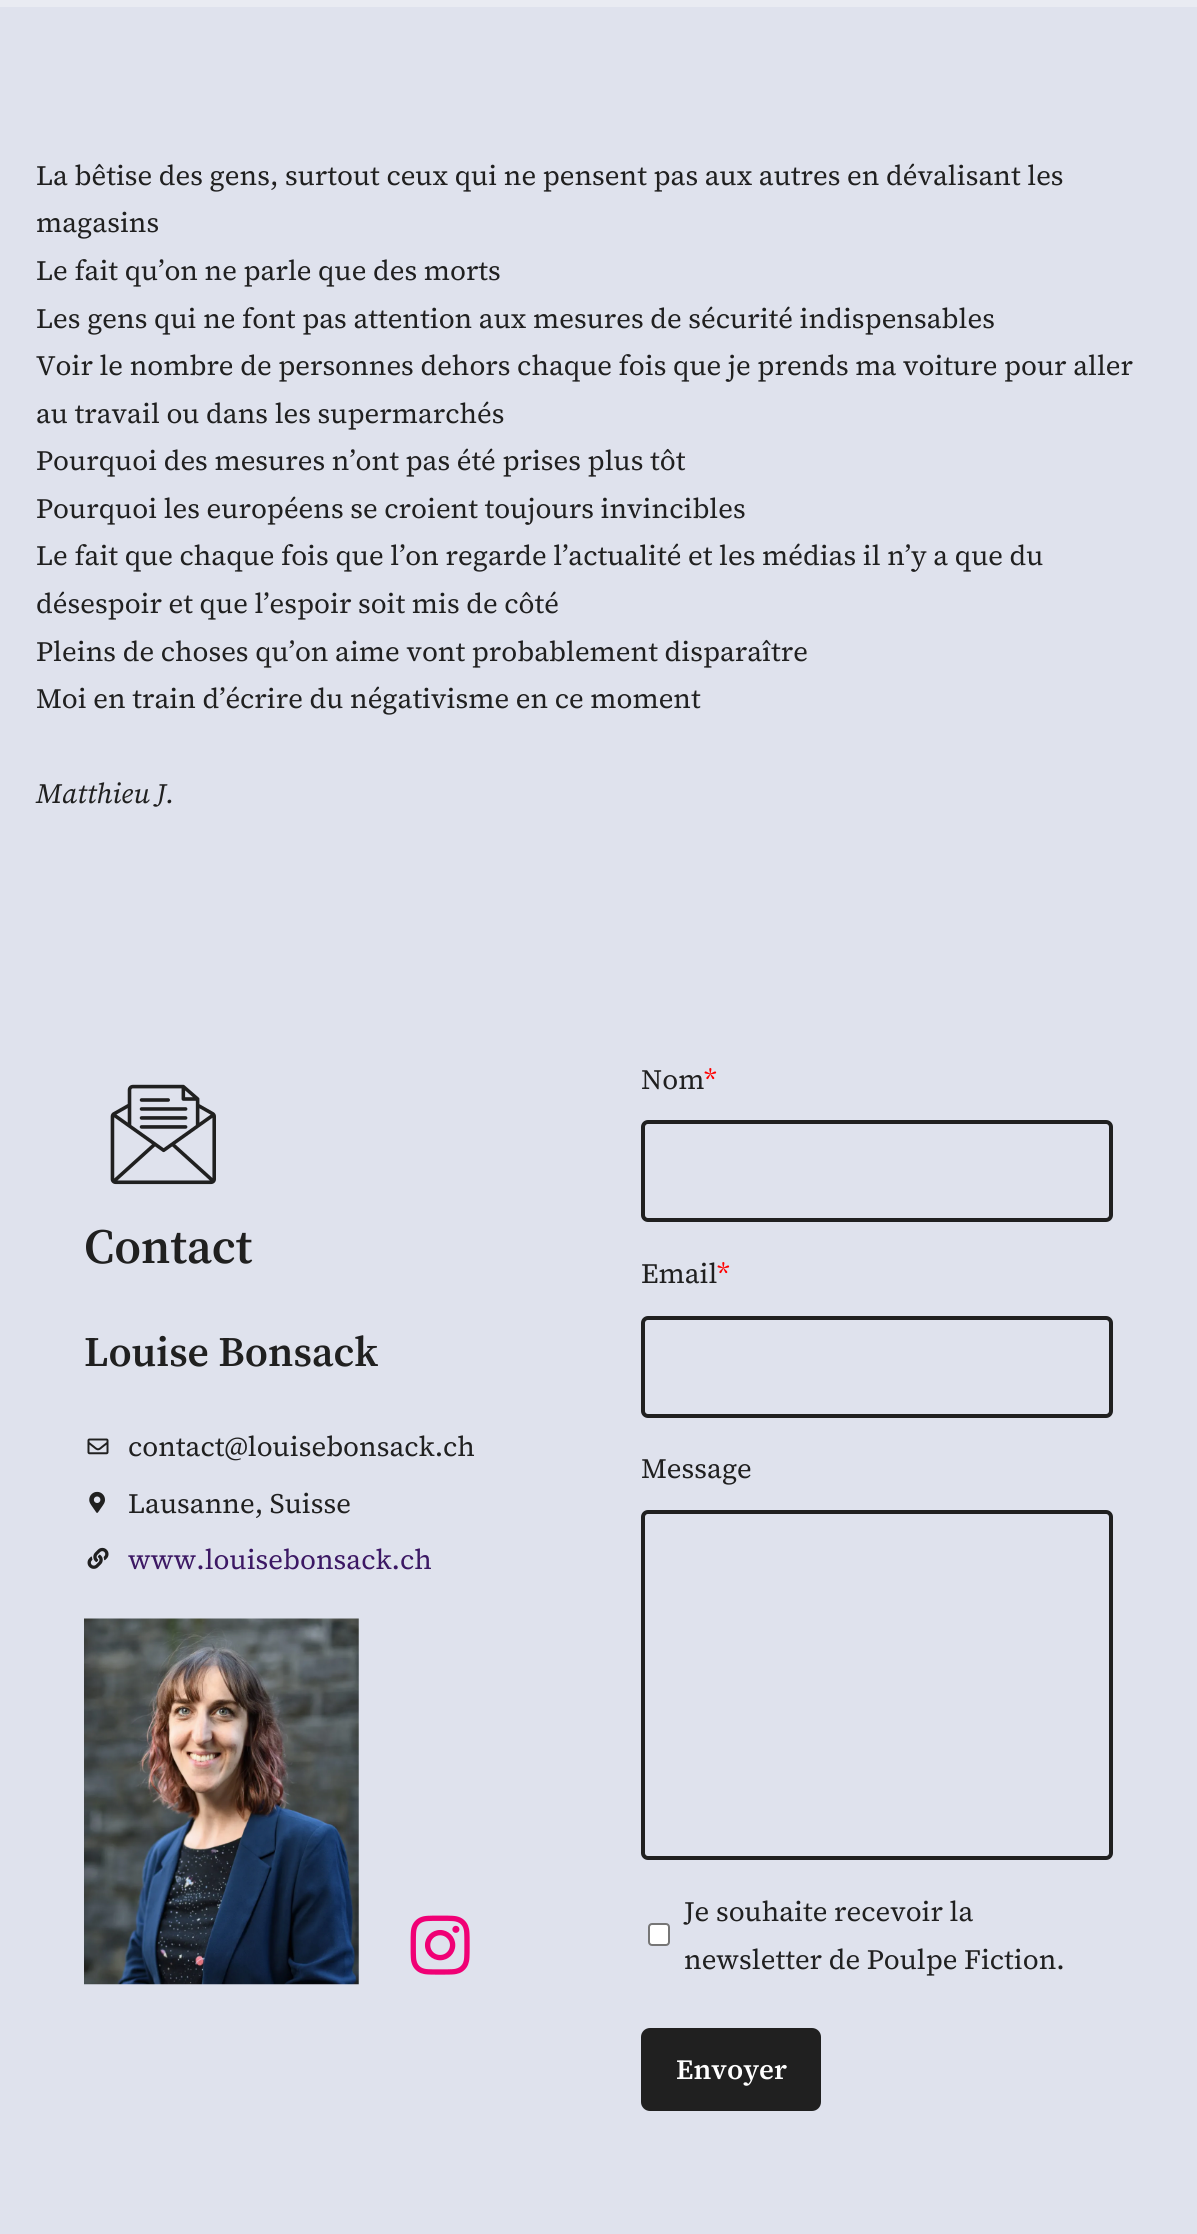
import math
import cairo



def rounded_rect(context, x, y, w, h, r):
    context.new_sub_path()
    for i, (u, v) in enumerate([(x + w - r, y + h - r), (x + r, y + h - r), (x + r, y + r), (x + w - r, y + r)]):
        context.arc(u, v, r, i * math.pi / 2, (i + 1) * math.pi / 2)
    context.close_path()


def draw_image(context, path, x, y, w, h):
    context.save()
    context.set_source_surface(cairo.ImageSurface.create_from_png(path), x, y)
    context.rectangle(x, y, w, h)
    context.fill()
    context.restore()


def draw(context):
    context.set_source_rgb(223 / 255, 226 / 255, 237 / 255)
    context.paint()
    context.set_source_rgb(233 / 255, 235 / 255, 242 / 255)
    context.rectangle(0, 0, 1197, 7)
    context.fill()
    draw_image(context, "images/1.png", 110, 1084, 106, 101)
    draw_image(context, "images/2.png", 87, 1438, 22, 17)
    draw_image(context, "images/3.png", 89, 1491, 16, 22)
    draw_image(context, "images/4.png", 87, 1547, 22, 22)
    draw_image(context, "images/5.png", 84, 1618, 275, 367)
    draw_image(context, "images/6.png", 410, 1915, 60, 60)
    rounded_rect(context, 643, 1122, 468, 98, 5)
    context.set_source_rgb(32 / 255, 32 / 255, 32 / 255)
    context.set_line_width(4)
    context.stroke()
    rounded_rect(context, 643, 1318, 468, 98, 5)
    context.stroke()
    rounded_rect(context, 643, 1512, 468, 346, 5)
    context.stroke()
    context.set_source_rgb(1, 1, 1)
    rounded_rect(context, 649, 1924, 20, 21, 3)
    context.fill_preserve()
    context.set_source_rgb(118 / 255, 118 / 255, 118 / 255)
    context.set_line_width(2)
    context.stroke()
    context.set_source_rgb(32 / 255, 32 / 255, 32 / 255)
    rounded_rect(context, 641, 2028, 180, 83, 9)
    context.fill()
    context.select_font_face("Source Serif 4")
    context.set_font_size(28)
    context.move_to(36, 185)
    context.show_text("La bêtise des gens, surtout ceux qui ne pensent pas aux autres en dévalisant les")
    context.move_to(36, 232)
    context.show_text("magasins")
    context.move_to(36, 280)
    context.show_text("Le fait qu’on ne parle que des morts")
    context.move_to(36, 328)
    context.show_text("Les gens qui ne font pas attention aux mesures de sécurité indispensables")
    context.move_to(36, 375)
    context.show_text("Voir le nombre de personnes dehors chaque fois que je prends ma voiture pour aller")
    context.move_to(36, 423)
    context.show_text("au travail ou dans les supermarchés")
    context.move_to(36, 470)
    context.show_text("Pourquoi des mesures n’ont pas été prises plus tôt")
    context.move_to(36, 518)
    context.show_text("Pourquoi les européens se croient toujours invincibles")
    context.move_to(36, 565)
    context.show_text("Le fait que chaque fois que l’on regarde l’actualité et les médias il n’y a que du")
    context.move_to(36, 613)
    context.show_text("désespoir et que l’espoir soit mis de côté")
    context.move_to(36, 661)
    context.show_text("Pleins de choses qu’on aime vont probablement disparaître")
    context.move_to(36, 708)
    context.show_text("Moi en train d’écrire du négativisme en ce moment")
    context.select_font_face("Source Serif 4", cairo.FontSlant.ITALIC)
    context.move_to(36, 803)
    context.show_text("Matthieu J.")
    context.select_font_face("Source Serif 4 SemiBold")
    context.set_font_size(49)
    context.move_to(84, 1263)
    context.show_text("Contact")
    context.select_font_face("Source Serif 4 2 SemiBold")
    context.set_font_size(42)
    context.move_to(84, 1366)
    context.show_text("Louise Bonsack")
    context.select_font_face("Source Serif 4")
    context.set_font_size(28)
    context.move_to(128, 1456)
    context.show_text("contact@louisebonsack.ch")
    context.move_to(128, 1513)
    context.show_text("Lausanne, Suisse")
    context.set_source_rgb(60 / 255, 24 / 255, 100 / 255)
    context.move_to(128, 1569)
    context.show_text("www.louisebonsack.ch")
    context.set_source_rgb(32 / 255, 32 / 255, 32 / 255)
    context.move_to(641, 1089)
    context.show_text("Nom")
    context.set_source_rgb(1, 0, 0)
    context.move_to(704, 1089)
    context.show_text("*")
    context.set_source_rgb(32 / 255, 32 / 255, 32 / 255)
    context.move_to(641, 1283)
    context.show_text("Email")
    context.set_source_rgb(1, 0, 0)
    context.move_to(717, 1283)
    context.show_text("*")
    context.set_source_rgb(32 / 255, 32 / 255, 32 / 255)
    context.move_to(641, 1478)
    context.show_text("Message")
    context.move_to(684, 1921)
    context.show_text("Je souhaite recevoir la")
    context.move_to(684, 1969)
    context.show_text("newsletter de Poulpe Fiction.")
    context.select_font_face("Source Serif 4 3 SemiBold")
    context.set_source_rgb(1, 1, 1)
    context.move_to(676, 2079)
    context.show_text("Envoyer")


surface = cairo.ImageSurface(cairo.Format.RGB24, 1197, 2234)
context = cairo.Context(surface)
options = cairo.FontOptions()
options.set_hint_metrics(cairo.HintMetrics.OFF)
options.set_hint_style(cairo.HintStyle.NONE)
context.set_font_options(options)
context.set_miter_limit(4)
draw(context)
surface.write_to_png("out.png")
